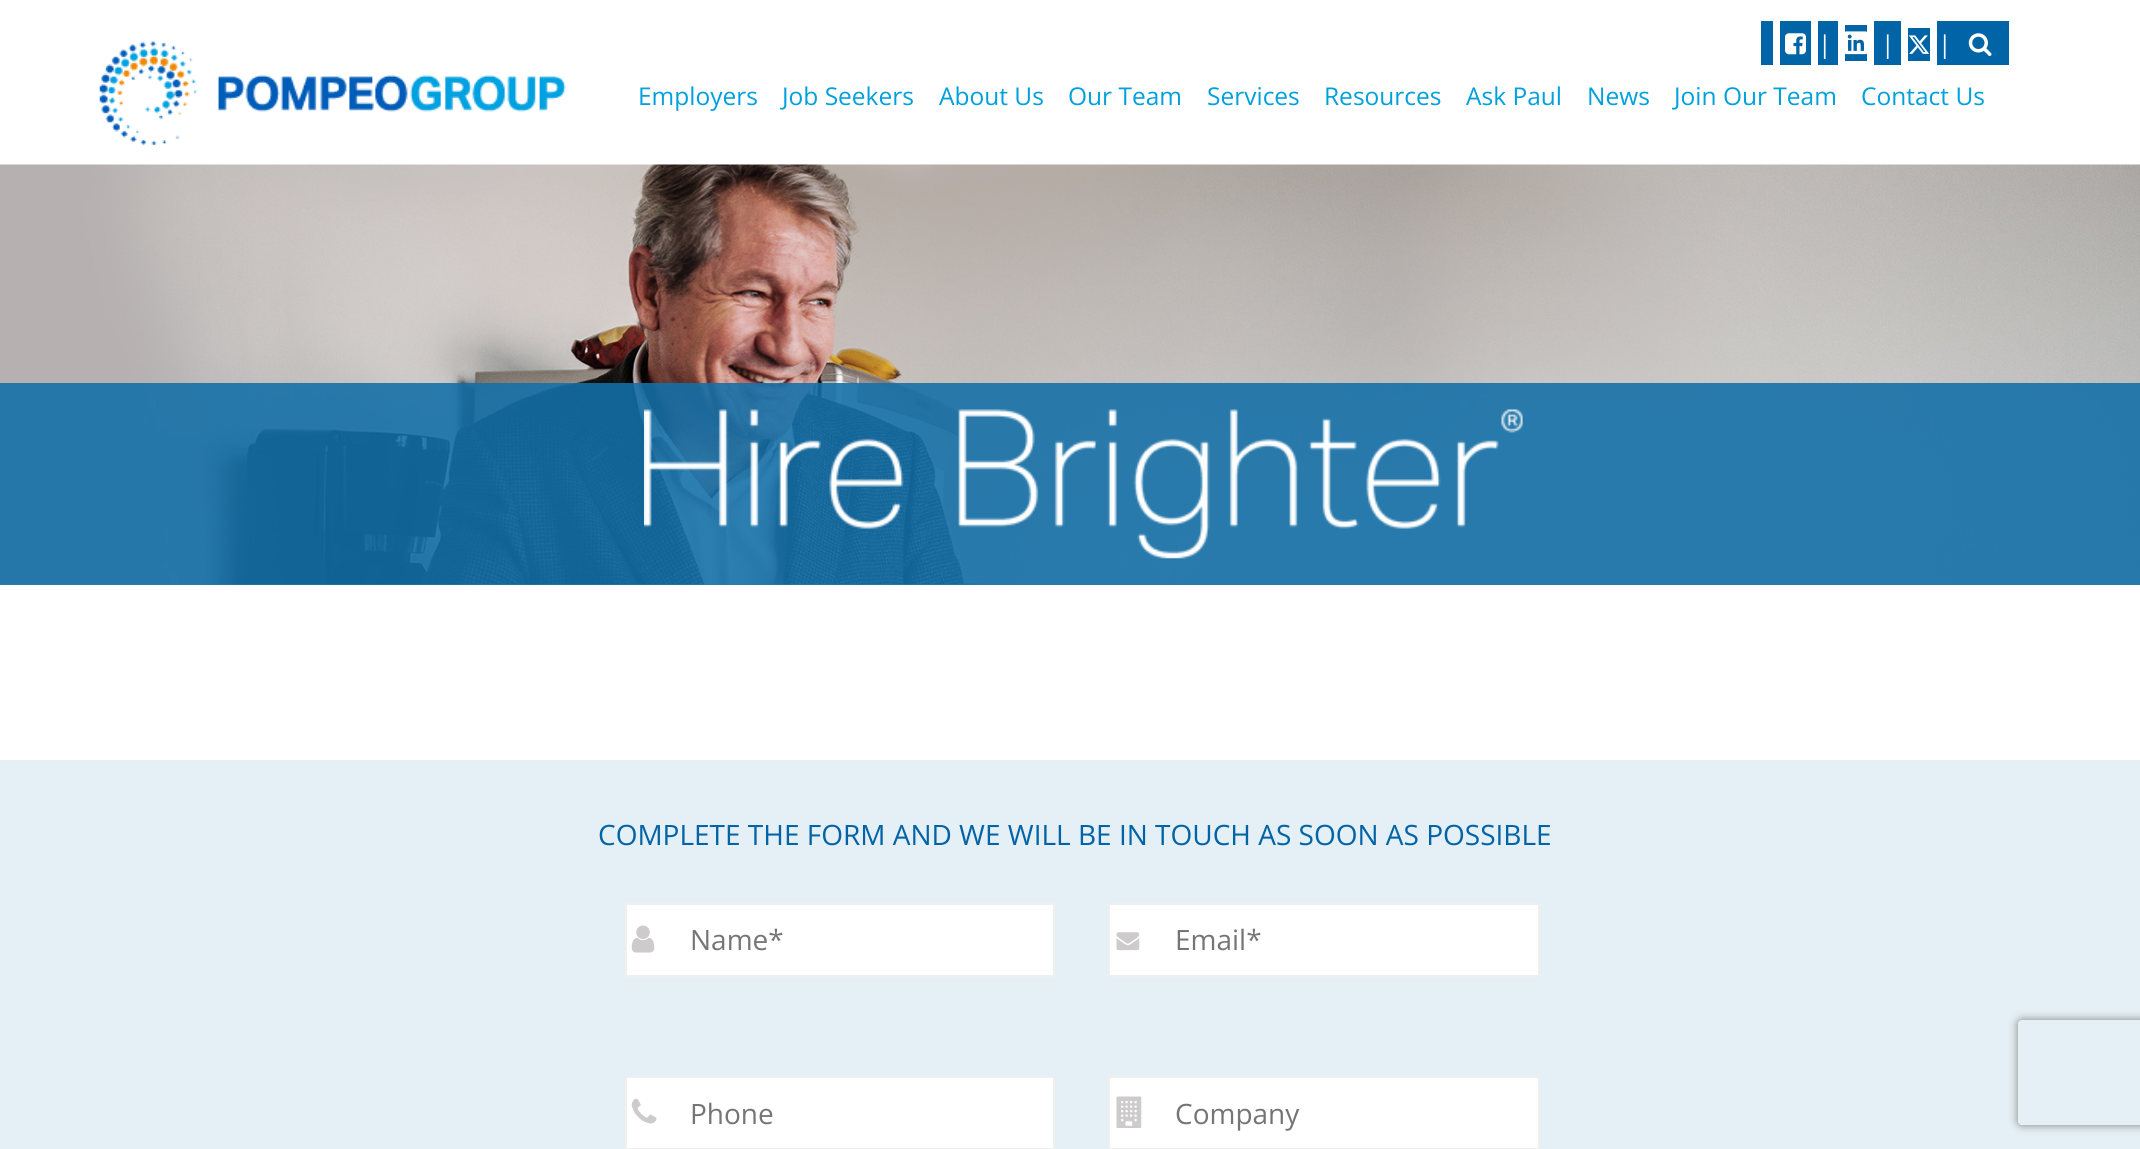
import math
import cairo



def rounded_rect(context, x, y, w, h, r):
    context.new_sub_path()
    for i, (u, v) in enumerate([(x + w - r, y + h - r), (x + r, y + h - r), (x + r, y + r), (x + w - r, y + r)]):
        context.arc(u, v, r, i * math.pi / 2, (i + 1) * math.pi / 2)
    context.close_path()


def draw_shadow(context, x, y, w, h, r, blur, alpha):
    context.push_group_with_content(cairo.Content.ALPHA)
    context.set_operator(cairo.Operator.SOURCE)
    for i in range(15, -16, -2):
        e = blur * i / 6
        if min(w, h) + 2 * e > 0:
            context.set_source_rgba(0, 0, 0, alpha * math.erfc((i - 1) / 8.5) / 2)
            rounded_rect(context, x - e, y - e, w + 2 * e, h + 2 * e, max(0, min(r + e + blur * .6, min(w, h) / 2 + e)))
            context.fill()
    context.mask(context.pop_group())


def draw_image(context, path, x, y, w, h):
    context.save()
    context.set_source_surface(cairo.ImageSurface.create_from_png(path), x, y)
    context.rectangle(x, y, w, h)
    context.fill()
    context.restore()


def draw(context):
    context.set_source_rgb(1, 1, 1)
    context.paint()
    draw_image(context, "images/1.png", 99, 41, 467, 105)
    context.set_source_rgb(0, 100 / 255, 166 / 255)
    context.rectangle(1780, 21, 31, 44)
    context.fill()
    draw_image(context, "images/2.png", 1785, 33, 21, 22)
    context.rectangle(1761, 21, 12, 44)
    context.fill()
    context.rectangle(1818, 21, 20, 44)
    context.fill()
    context.rectangle(1845, 25, 22, 36)
    context.fill()
    draw_image(context, "images/3.png", 1845, 31, 22, 24)
    context.rectangle(1874, 21, 27, 44)
    context.fill()
    context.rectangle(1908, 28, 22, 33)
    context.fill()
    draw_image(context, "images/4.png", 1908, 35, 21, 19)
    context.rectangle(1937, 21, 27, 44)
    context.fill()
    context.rectangle(1964, 21, 45, 44)
    context.fill()
    draw_image(context, "images/5.png", 1968, 33, 24, 23)
    draw_image(context, "images/6.png", 0, 164, 2140, 421)
    context.set_source_rgba(20 / 255, 111 / 255, 168 / 255, 0.88)
    context.rectangle(0, 383, 2140, 202)
    context.fill()
    draw_image(context, "images/7.png", 644, 409, 879, 150)
    context.set_source_rgb(229 / 255, 239 / 255, 246 / 255)
    context.rectangle(0, 760, 2140, 389)
    context.fill()
    context.set_source_rgb(1, 1, 1)
    context.rectangle(626, 904, 428, 72)
    context.fill_preserve()
    context.set_source_rgb(239 / 255, 239 / 255, 239 / 255)
    context.stroke()
    draw_image(context, "images/8.png", 631, 925, 24, 28)
    context.set_source_rgb(1, 1, 1)
    context.rectangle(1109, 904, 430, 72)
    context.fill_preserve()
    context.set_source_rgb(239 / 255, 239 / 255, 239 / 255)
    context.stroke()
    draw_image(context, "images/9.png", 1116, 932, 24, 19)
    context.set_source_rgb(1, 1, 1)
    context.rectangle(626, 1077, 428, 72)
    context.fill_preserve()
    context.set_source_rgb(239 / 255, 239 / 255, 239 / 255)
    context.stroke()
    draw_image(context, "images/10.png", 631, 1098, 26, 26)
    context.set_source_rgb(1, 1, 1)
    context.rectangle(1109, 1077, 430, 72)
    context.fill_preserve()
    context.set_source_rgb(239 / 255, 239 / 255, 239 / 255)
    context.stroke()
    draw_image(context, "images/11.png", 1116, 1096, 26, 32)
    context.save()
    context.set_fill_rule(cairo.FillRule.EVEN_ODD)
    context.new_path()
    context.move_to(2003, 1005)
    context.line_to(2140, 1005)
    context.line_to(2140, 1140)
    context.line_to(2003, 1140)
    context.close_path()
    context.move_to(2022, 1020)
    context.line_to(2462, 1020)
    context.curve_to(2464, 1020, 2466, 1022, 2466, 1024)
    context.line_to(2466, 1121)
    context.curve_to(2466, 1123, 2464, 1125, 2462, 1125)
    context.line_to(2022, 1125)
    context.curve_to(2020, 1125, 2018, 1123, 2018, 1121)
    context.line_to(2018, 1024)
    context.curve_to(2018, 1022, 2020, 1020, 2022, 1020)
    context.close_path()
    context.clip()
    context.set_source_rgb(128 / 255, 128 / 255, 128 / 255)
    draw_shadow(context, 2018, 1020, 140, 105, 4, 4.5, 1)
    context.restore()
    context.select_font_face("Open Sans")
    context.set_font_size(24.5)
    context.set_source_rgb(1, 1, 1)
    context.move_to(1818, 53)
    context.show_text("|")
    context.move_to(1881, 53)
    context.show_text("|")
    context.move_to(1938, 53)
    context.show_text("|")
    context.set_source_rgb(0, 160 / 255, 221 / 255)
    context.move_to(638, 105)
    context.show_text("Employers")
    context.move_to(782, 105)
    context.show_text("Job Seekers")
    context.move_to(939, 105)
    context.show_text("About Us")
    context.move_to(1068, 105)
    context.show_text("Our Team")
    context.move_to(1207, 105)
    context.show_text("Services")
    context.move_to(1324, 105)
    context.show_text("Resources")
    context.move_to(1466, 105)
    context.show_text("Ask Paul")
    context.move_to(1587, 105)
    context.show_text("News")
    context.move_to(1674, 105)
    context.show_text("Join Our Team")
    context.move_to(1861, 105)
    context.show_text("Contact Us")
    context.set_font_size(28)
    context.set_source_rgb(0, 99 / 255, 166 / 255)
    context.move_to(598, 845)
    context.show_text("COMPLETE THE FORM AND WE WILL BE IN TOUCH AS SOON AS POSSIBLE")
    context.set_source_rgb(117 / 255, 117 / 255, 117 / 255)
    context.move_to(690, 950)
    context.show_text("Name*")
    context.move_to(1175, 950)
    context.show_text("Email*")
    context.move_to(690, 1124)
    context.show_text("Phone")
    context.move_to(1175, 1124)
    context.show_text("Company")


surface = cairo.ImageSurface(cairo.Format.RGB24, 2140, 1149)
context = cairo.Context(surface)
options = cairo.FontOptions()
options.set_hint_metrics(cairo.HintMetrics.OFF)
options.set_hint_style(cairo.HintStyle.NONE)
context.set_font_options(options)
context.set_miter_limit(4)
draw(context)
surface.write_to_png("out.png")
